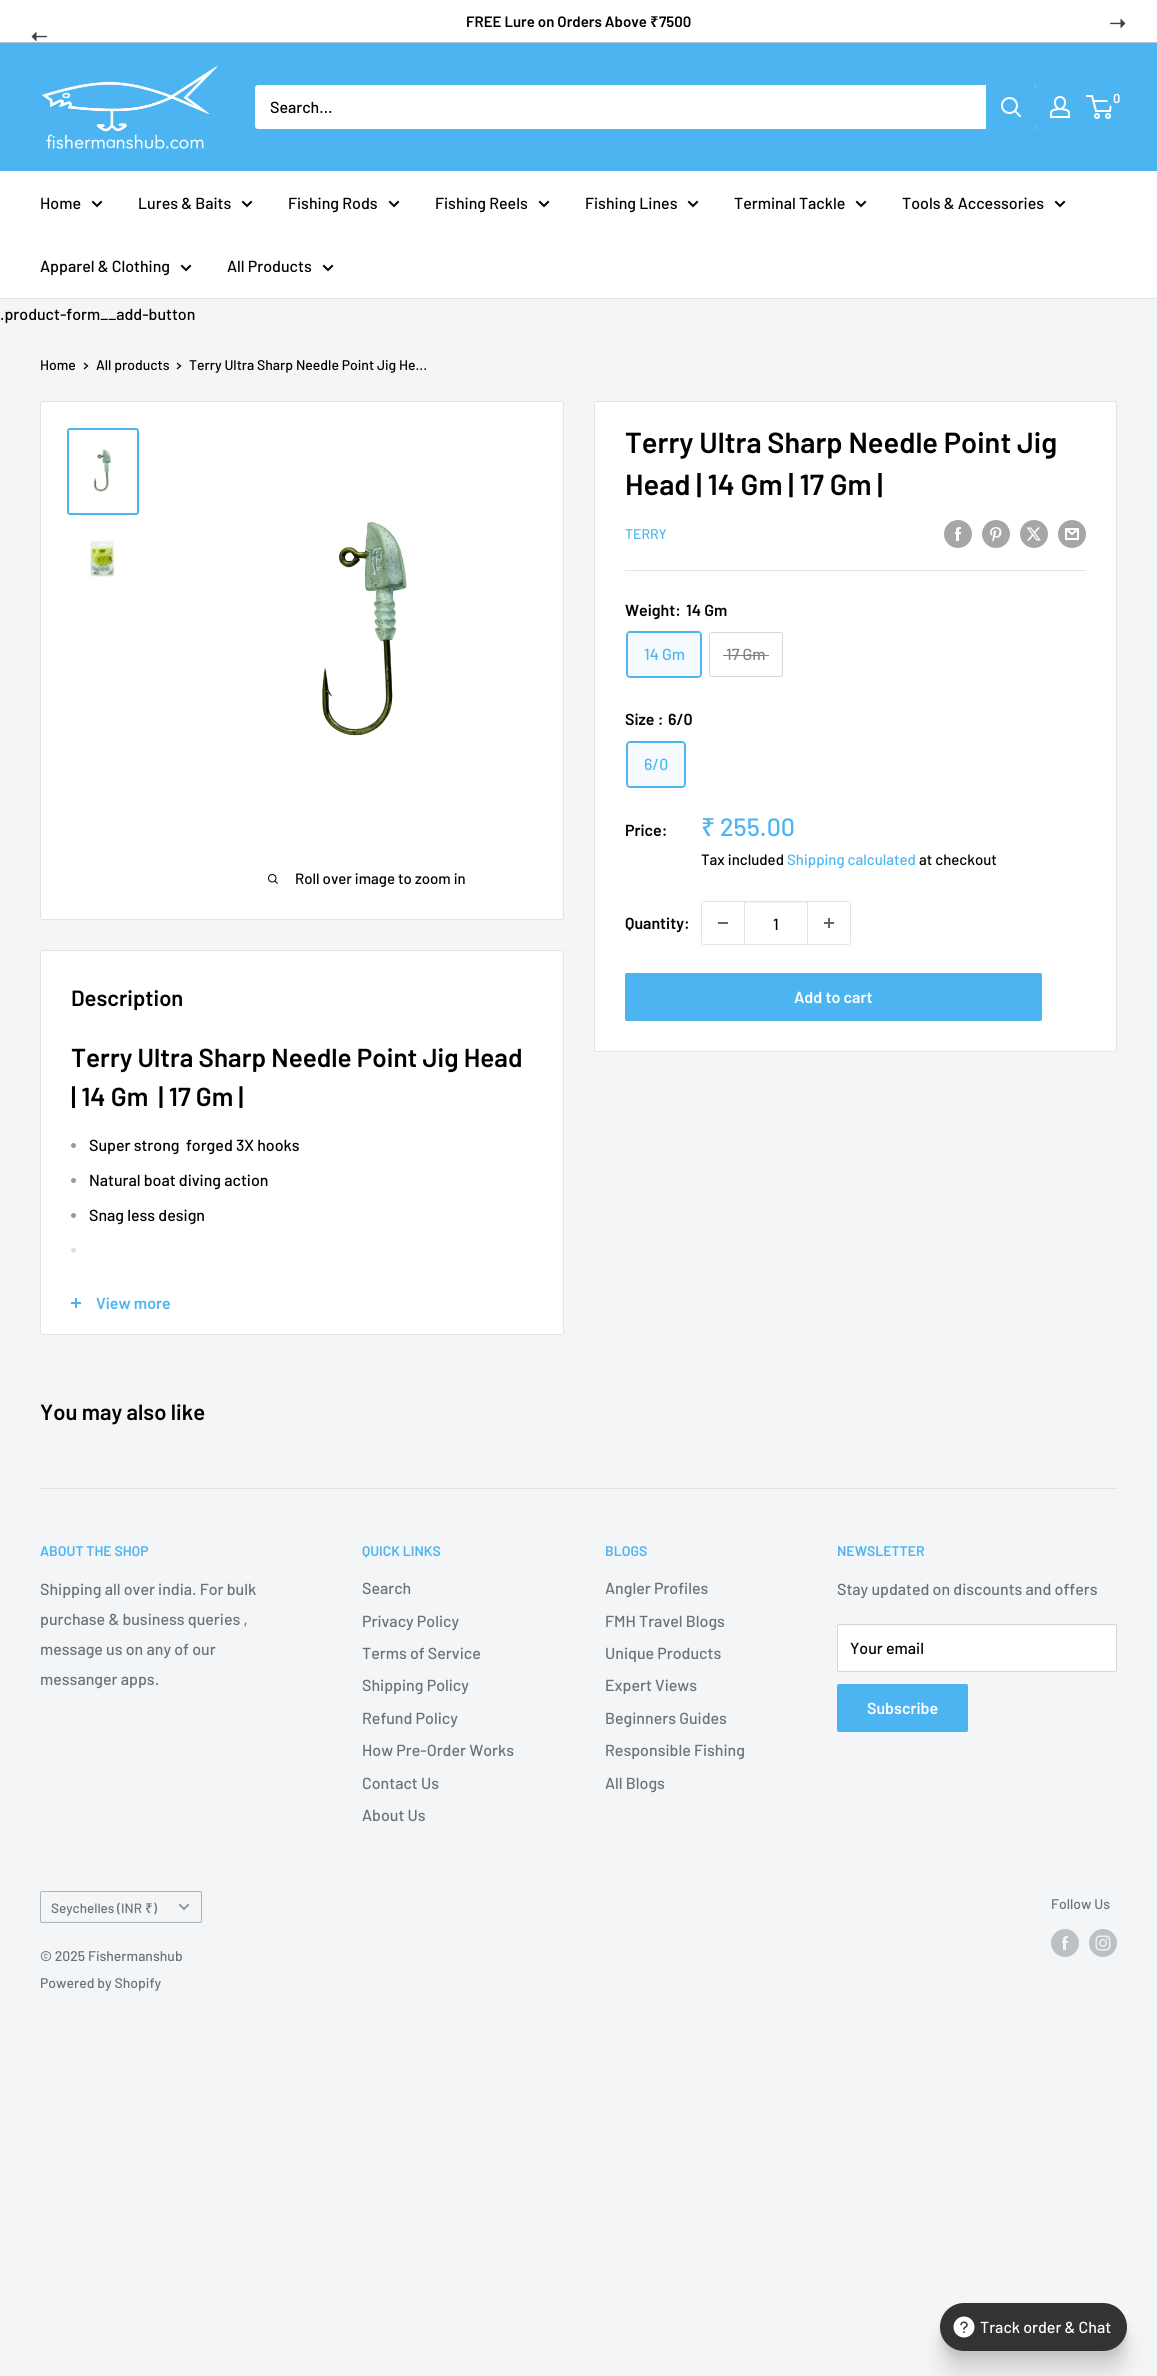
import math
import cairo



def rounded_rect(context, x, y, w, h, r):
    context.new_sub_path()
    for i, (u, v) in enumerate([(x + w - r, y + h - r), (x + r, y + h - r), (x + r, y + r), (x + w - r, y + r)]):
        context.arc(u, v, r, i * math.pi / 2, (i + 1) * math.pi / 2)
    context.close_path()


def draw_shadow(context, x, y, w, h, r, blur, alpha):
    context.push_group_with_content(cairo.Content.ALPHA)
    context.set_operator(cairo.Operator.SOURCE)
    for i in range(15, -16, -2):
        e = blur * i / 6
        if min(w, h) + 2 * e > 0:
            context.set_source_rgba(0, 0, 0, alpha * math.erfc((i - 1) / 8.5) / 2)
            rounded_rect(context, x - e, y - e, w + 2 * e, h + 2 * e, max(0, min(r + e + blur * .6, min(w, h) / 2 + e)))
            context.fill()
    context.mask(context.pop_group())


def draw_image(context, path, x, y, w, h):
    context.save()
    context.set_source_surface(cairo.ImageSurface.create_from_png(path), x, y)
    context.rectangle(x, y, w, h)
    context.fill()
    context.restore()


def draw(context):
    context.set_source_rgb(243 / 255, 245 / 255, 246 / 255)
    context.paint()
    context.set_source_rgb(1, 1, 1)
    context.rectangle(0, 0, 1157, 42)
    context.fill()
    context.set_source_rgb(188 / 255, 192 / 255, 216 / 255)
    context.rectangle(0, 42, 1157, 1)
    context.fill()
    context.set_source_rgb(76 / 255, 181 / 255, 241 / 255)
    context.rectangle(0, 43, 1157, 128)
    context.fill()
    draw_image(context, "images/1.png", 41, 66, 177, 83)
    draw_image(context, "images/2.png", 1050, 96, 20, 22)
    context.arc(1097, 116, 2, 0, 2 * math.pi)
    context.set_source_rgb(1, 1, 1)
    context.stroke()
    context.arc(1108, 116, 2, 0, 2 * math.pi)
    context.stroke()
    context.new_path()
    context.move_to(1093.5, 101)
    context.line_to(1111.5, 101)
    context.line_to(1110, 111)
    context.line_to(1096, 111)
    context.line_to(1092, 96)
    context.line_to(1086, 96)
    context.stroke()
    context.set_source_rgb(76 / 255, 181 / 255, 241 / 255)
    context.arc(1117, 98, 10, 0, 2 * math.pi)
    context.fill()
    context.set_source_rgb(1, 1, 1)
    rounded_rect(context, 255, 85, 781, 44, 3)
    context.fill()
    context.set_source_rgb(76 / 255, 181 / 255, 241 / 255)
    context.new_path()
    context.move_to(986, 85)
    context.line_to(1033, 85)
    context.curve_to(1034.5, 85, 1036, 86.5, 1036, 88)
    context.line_to(1036, 126)
    context.curve_to(1036, 127.5, 1034.5, 129, 1033, 129)
    context.line_to(986, 129)
    context.close_path()
    context.fill()
    context.new_path()
    context.move_to(1020, 116)
    context.line_to(1015, 111)
    context.set_source_rgb(1, 1, 1)
    context.set_line_cap(cairo.LineCap.SQUARE)
    context.stroke()
    context.arc(1009.5, 105.5, 7.5, 0, 2 * math.pi)
    context.set_line_cap(cairo.LineCap.BUTT)
    context.stroke()
    context.rectangle(0, 171, 1157, 127)
    context.fill()
    context.set_source_rgb(225 / 255, 227 / 255, 228 / 255)
    context.rectangle(0, 298, 1157, 1)
    context.fill()
    context.new_path()
    context.move_to(101, 202)
    context.line_to(97, 206)
    context.line_to(93, 202)
    context.set_source_rgb(0, 0, 0)
    context.set_line_cap(cairo.LineCap.SQUARE)
    context.stroke()
    context.new_path()
    context.move_to(251, 202)
    context.line_to(247, 206)
    context.line_to(243, 202)
    context.stroke()
    context.new_path()
    context.move_to(398, 202)
    context.line_to(394, 206)
    context.line_to(390, 202)
    context.stroke()
    context.new_path()
    context.move_to(548, 202)
    context.line_to(544, 206)
    context.line_to(540, 202)
    context.stroke()
    context.new_path()
    context.move_to(697, 202)
    context.line_to(693, 206)
    context.line_to(689, 202)
    context.stroke()
    context.new_path()
    context.move_to(865, 202)
    context.line_to(861, 206)
    context.line_to(857, 202)
    context.stroke()
    context.new_path()
    context.move_to(1064, 202)
    context.line_to(1060, 206)
    context.line_to(1056, 202)
    context.stroke()
    context.new_path()
    context.move_to(190, 266)
    context.line_to(186, 270)
    context.line_to(182, 266)
    context.stroke()
    context.new_path()
    context.move_to(332, 266)
    context.line_to(328, 270)
    context.line_to(324, 266)
    context.stroke()
    context.new_path()
    context.move_to(84.5, 363.5)
    context.line_to(87.5, 366)
    context.line_to(84.5, 368.5)
    context.set_line_width(1.3)
    context.stroke()
    context.new_path()
    context.move_to(177.5, 363.5)
    context.line_to(180.5, 366)
    context.line_to(177.5, 368.5)
    context.stroke()
    context.set_source_rgb(1, 1, 1)
    rounded_rect(context, 40.5, 401.5, 523, 518, 2.5)
    context.fill_preserve()
    context.set_source_rgb(225 / 255, 227 / 255, 228 / 255)
    context.set_line_width(1)
    context.set_line_cap(cairo.LineCap.BUTT)
    context.stroke()
    rounded_rect(context, 68, 429, 70, 85, 2)
    context.set_source_rgb(76 / 255, 181 / 255, 241 / 255)
    context.set_line_width(2)
    context.stroke()
    draw_image(context, "images/3.png", 93, 449, 19, 43)
    draw_image(context, "images/4.png", 90, 540, 25, 37)
    draw_image(context, "images/5.png", 322, 522, 85, 214)
    draw_image(context, "images/6.png", 268, 874, 10, 10)
    context.set_source_rgb(1, 1, 1)
    rounded_rect(context, 594.5, 401.5, 522, 650, 2.5)
    context.fill_preserve()
    context.set_source_rgb(225 / 255, 227 / 255, 228 / 255)
    context.set_line_width(1)
    context.stroke()
    draw_image(context, "images/7.png", 944, 520, 28, 28)
    draw_image(context, "images/8.png", 982, 520, 28, 28)
    draw_image(context, "images/9.png", 1020, 520, 28, 28)
    draw_image(context, "images/10.png", 1058, 520, 28, 28)
    context.rectangle(625, 570, 461, 1)
    context.fill()
    rounded_rect(context, 626.5, 631.5, 75, 46, 3.5)
    context.set_source_rgb(76 / 255, 181 / 255, 241 / 255)
    context.stroke()
    context.set_source_rgba(76 / 255, 181 / 255, 241 / 255, 0.06)
    context.rectangle(627, 632, 74, 45)
    context.fill()
    rounded_rect(context, 627.5, 632.5, 73, 44, 2.5)
    context.set_source_rgb(76 / 255, 181 / 255, 241 / 255)
    context.stroke()
    rounded_rect(context, 709.5, 632.5, 73, 44, 2.5)
    context.set_source_rgb(212 / 255, 214 / 255, 216 / 255)
    context.stroke()
    context.set_source_rgb(128 / 255, 128 / 255, 128 / 255)
    context.rectangle(723, 655, 46, 1)
    context.fill()
    rounded_rect(context, 626.5, 741.5, 59, 46, 3.5)
    context.set_source_rgb(76 / 255, 181 / 255, 241 / 255)
    context.stroke()
    context.set_source_rgba(76 / 255, 181 / 255, 241 / 255, 0.06)
    context.rectangle(627, 742, 58, 45)
    context.fill()
    rounded_rect(context, 627.5, 742.5, 57, 44, 2.5)
    context.set_source_rgb(76 / 255, 181 / 255, 241 / 255)
    context.stroke()
    rounded_rect(context, 701.5, 901.5, 149, 43, 2.5)
    context.set_source_rgb(225 / 255, 227 / 255, 228 / 255)
    context.stroke()
    context.set_source_rgb(102 / 255, 102 / 255, 102 / 255)
    context.rectangle(718, 922, 10, 2)
    context.fill()
    context.set_source_rgb(243 / 255, 244 / 255, 244 / 255)
    context.rectangle(745, 902, 62, 1)
    context.fill()
    context.set_source_rgb(225 / 255, 227 / 255, 228 / 255)
    context.rectangle(807, 902, 1, 42)
    context.fill()
    context.rectangle(744, 902, 1, 42)
    context.fill()
    draw_image(context, "images/11.png", 824, 918, 10, 10)
    context.set_source_rgb(76 / 255, 181 / 255, 241 / 255)
    rounded_rect(context, 625, 973, 417, 48, 2)
    context.fill()
    context.set_source_rgb(1, 1, 1)
    rounded_rect(context, 40.5, 950.5, 523, 384, 2.5)
    context.fill_preserve()
    context.set_source_rgb(225 / 255, 227 / 255, 228 / 255)
    context.stroke()
    context.set_source_rgb(153 / 255, 153 / 255, 153 / 255)
    context.arc(73.5, 1145.5, 2.5, 0, 2 * math.pi)
    context.fill()
    context.arc(73.5, 1180.5, 2.5, 0, 2 * math.pi)
    context.fill()
    context.arc(73.5, 1215.5, 2.5, 0, 2 * math.pi)
    context.fill()
    context.arc(73.5, 1250.5, 2.5, 0, 2 * math.pi)
    context.fill()
    context.set_source_rgb(1, 1, 1)
    context.rectangle(41, 1332, 522, 2)
    context.fill()
    context.set_source_rgb(76 / 255, 181 / 255, 241 / 255)
    context.rectangle(75, 1298, 2, 10)
    context.fill()
    context.rectangle(71, 1302, 10, 2)
    context.fill()
    context.set_source_rgb(225 / 255, 227 / 255, 228 / 255)
    context.rectangle(40, 1488, 1077, 1)
    context.fill()
    context.set_source_rgb(1, 1, 1)
    rounded_rect(context, 837, 1624, 280, 48, 2)
    context.fill()
    context.set_source_rgb(248 / 255, 248 / 255, 248 / 255)
    context.new_path()
    context.move_to(839, 1626)
    context.line_to(1115, 1626)
    context.curve_to(1116, 1626, 1116, 1626, 1116, 1627)
    context.curve_to(1116, 1626, 1116, 1625, 1115, 1625)
    context.line_to(839, 1625)
    context.line_to(838, 1625)
    context.line_to(838, 1627)
    context.curve_to(838, 1626, 838, 1626, 839, 1626)
    context.close_path()
    context.fill()
    rounded_rect(context, 837.5, 1624.5, 279, 47, 1.5)
    context.set_source_rgb(212 / 255, 214 / 255, 216 / 255)
    context.stroke()
    context.set_source_rgb(76 / 255, 181 / 255, 241 / 255)
    rounded_rect(context, 837, 1684, 131, 48, 2)
    context.fill()
    context.set_source_rgb(238 / 255, 240 / 255, 241 / 255)
    context.new_path()
    context.move_to(41, 1920)
    context.curve_to(41, 1921, 41, 1922, 42, 1922)
    context.line_to(201, 1922)
    context.line_to(201, 1920)
    context.curve_to(201, 1921, 201, 1921, 200, 1921)
    context.line_to(41, 1921)
    context.close_path()
    context.fill()
    rounded_rect(context, 40.5, 1891.5, 161, 31, 1.5)
    context.set_source_rgb(173 / 255, 180 / 255, 184 / 255)
    context.stroke()
    context.new_path()
    context.move_to(188, 1905)
    context.line_to(184, 1909)
    context.line_to(180, 1905)
    context.set_source_rgb(145 / 255, 153 / 255, 159 / 255)
    context.set_line_width(2)
    context.set_line_cap(cairo.LineCap.SQUARE)
    context.stroke()
    draw_image(context, "images/12.png", 1051, 1929, 28, 28)
    draw_image(context, "images/13.png", 1089, 1929, 28, 28)
    context.set_source_rgb(0, 0, 0)
    draw_shadow(context, 940, 2328, 187, 48, 24, 10, 0.1)
    draw_shadow(context, 940, 2316, 187, 48, 24, 5, 0.06)
    draw_shadow(context, 940, 2309, 187, 48, 24, 2, 0.06)
    context.set_source_rgb(51 / 255, 51 / 255, 51 / 255)
    rounded_rect(context, 940, 2303, 187, 48, 24)
    context.fill()
    draw_image(context, "images/14.png", 953, 2316, 22, 22)
    context.select_font_face("Barlow SemiBold")
    context.set_font_size(15)
    context.set_source_rgb(0, 0, 0)
    context.move_to(466, 27)
    context.show_text("FREE Lure on Orders Above")
    context.select_font_face("Noto Sans SemiBold")
    context.move_to(650, 27)
    context.show_text("₹")
    context.select_font_face("Barlow SemiBold")
    context.move_to(659, 27)
    context.show_text("7500")
    context.select_font_face("DejaVu Sans", cairo.FontSlant.NORMAL, cairo.FontWeight.BOLD)
    context.set_font_size(20)
    context.set_source_rgb(64 / 255, 64 / 255, 64 / 255)
    context.move_to(1109, 30)
    context.show_text("➝")
    context.save()
    context.translate(48, 30)
    context.rotate(180 * math.pi / 180)
    context.move_to(0, 0)
    context.show_text("➝")
    context.restore()
    context.select_font_face("Barlow SemiBold")
    context.set_font_size(13)
    context.set_source_rgb(1, 1, 1)
    context.move_to(1113, 103)
    context.show_text("0")
    context.select_font_face("Barlow Medium")
    context.set_font_size(16)
    context.set_source_rgb(0, 0, 0)
    context.move_to(270, 113)
    context.show_text("Search...")
    context.move_to(40, 209)
    context.show_text("Home")
    context.move_to(138, 209)
    context.show_text("Lures & Baits")
    context.move_to(288, 209)
    context.show_text("Fishing Rods")
    context.move_to(435, 209)
    context.show_text("Fishing Reels")
    context.move_to(585, 209)
    context.show_text("Fishing Lines")
    context.move_to(734, 209)
    context.show_text("Terminal Tackle")
    context.move_to(902, 209)
    context.show_text("Tools & Accessories")
    context.move_to(40, 272)
    context.show_text("Apparel & Clothing")
    context.move_to(227, 272)
    context.show_text("All Products")
    context.move_to(0, 320)
    context.show_text(".product-form__add-button")
    context.set_font_size(14)
    context.move_to(40, 370)
    context.show_text("Home")
    context.move_to(96, 370)
    context.show_text("All products")
    context.move_to(189, 370)
    context.show_text("Terry Ultra Sharp Needle Point Jig He...")
    context.set_font_size(15)
    context.move_to(295, 884)
    context.show_text("Roll over image to zoom in")
    context.select_font_face("Barlow SemiBold")
    context.set_font_size(29)
    context.move_to(625, 453)
    context.show_text("Terry Ultra Sharp Needle Point Jig")
    context.move_to(625, 495)
    context.show_text("Head | 14 Gm | 17 Gm |")
    context.select_font_face("Barlow Medium")
    context.set_font_size(14)
    context.set_source_rgb(76 / 255, 181 / 255, 241 / 255)
    context.move_to(625, 539)
    context.show_text("TERRY")
    context.select_font_face("Barlow SemiBold")
    context.set_font_size(16)
    context.set_source_rgb(0, 0, 0)
    context.move_to(625, 616)
    context.show_text("Weight:")
    context.move_to(686, 616)
    context.show_text("14 Gm")
    context.select_font_face("Barlow Medium")
    context.set_source_rgb(76 / 255, 181 / 255, 241 / 255)
    context.move_to(644, 660)
    context.show_text("14 Gm")
    context.set_source_rgb(128 / 255, 128 / 255, 128 / 255)
    context.move_to(726, 660)
    context.show_text("17 Gm")
    context.select_font_face("Barlow SemiBold")
    context.set_source_rgb(0, 0, 0)
    context.move_to(625, 725)
    context.show_text("Size :")
    context.move_to(668, 725)
    context.show_text("6/0")
    context.select_font_face("Barlow Medium")
    context.set_source_rgb(76 / 255, 181 / 255, 241 / 255)
    context.move_to(644, 770)
    context.show_text("6/0")
    context.select_font_face("Barlow SemiBold")
    context.set_source_rgb(0, 0, 0)
    context.move_to(625, 836)
    context.show_text("Price:")
    context.select_font_face("Noto Sans Medium")
    context.set_font_size(25)
    context.set_source_rgb(76 / 255, 181 / 255, 241 / 255)
    context.move_to(701, 836)
    context.show_text("₹")
    context.select_font_face("Barlow Medium")
    context.move_to(720, 836)
    context.show_text("255.00")
    context.set_font_size(15)
    context.set_source_rgb(0, 0, 0)
    context.move_to(701, 865)
    context.show_text("Tax included")
    context.set_source_rgb(76 / 255, 181 / 255, 241 / 255)
    context.move_to(787, 865)
    context.show_text("Shipping calculated")
    context.set_source_rgb(0, 0, 0)
    context.move_to(919, 865)
    context.show_text("at checkout")
    context.select_font_face("Barlow SemiBold")
    context.set_font_size(16)
    context.move_to(625, 929)
    context.show_text("Quantity:")
    context.select_font_face("Barlow Medium")
    context.move_to(773, 930)
    context.show_text("1")
    context.select_font_face("Barlow SemiBold")
    context.set_source_rgb(1, 1, 1)
    context.move_to(794, 1003)
    context.show_text("Add to cart")
    context.set_font_size(22)
    context.set_source_rgb(0, 0, 0)
    context.move_to(71, 1006)
    context.show_text("Description")
    context.set_font_size(26)
    context.move_to(71, 1067)
    context.show_text("Terry Ultra Sharp Needle Point Jig Head")
    context.move_to(71, 1106)
    context.show_text("| 14 Gm  | 17 Gm |")
    context.select_font_face("Barlow Medium")
    context.set_font_size(16)
    context.move_to(89, 1151)
    context.show_text("Super strong  forged 3X hooks")
    context.move_to(89, 1186)
    context.show_text("Natural boat diving action")
    context.move_to(89, 1221)
    context.show_text("Snag less design")
    gradient = cairo.LinearGradient(302, 1222, 302, 1272)
    gradient.add_color_stop_rgba(0, 1, 1, 1, 0)
    gradient.add_color_stop_rgba(0.15, 1, 1, 1, 0.4)
    gradient.add_color_stop_rgba(1, 1, 1, 1, 1)
    context.set_source(gradient)
    context.rectangle(71, 1222, 124, 31)
    context.fill()
    context.select_font_face("Barlow SemiBold")
    context.set_source_rgb(76 / 255, 181 / 255, 241 / 255)
    context.move_to(96, 1309)
    context.show_text("View more")
    context.set_font_size(22)
    context.set_source_rgb(0, 0, 0)
    context.move_to(40, 1420)
    context.show_text("You may also like")
    context.set_font_size(14)
    context.set_source_rgb(76 / 255, 181 / 255, 241 / 255)
    context.move_to(40, 1556)
    context.show_text("ABOUT THE SHOP")
    context.select_font_face("Barlow Medium")
    context.set_font_size(16)
    context.set_source_rgb(103 / 255, 114 / 255, 121 / 255)
    context.move_to(40, 1595)
    context.show_text("Shipping all over india. For bulk")
    context.move_to(40, 1625)
    context.show_text("purchase & business queries ,")
    context.move_to(40, 1655)
    context.show_text("message us on any of our")
    context.move_to(40, 1685)
    context.show_text("messanger apps.")
    context.select_font_face("Barlow SemiBold")
    context.set_font_size(14)
    context.set_source_rgb(76 / 255, 181 / 255, 241 / 255)
    context.move_to(362, 1556)
    context.show_text("QUICK LINKS")
    context.select_font_face("Barlow Medium")
    context.set_font_size(16)
    context.set_source_rgb(103 / 255, 114 / 255, 121 / 255)
    context.move_to(362, 1594)
    context.show_text("Search")
    context.move_to(362, 1627)
    context.show_text("Privacy Policy")
    context.move_to(362, 1659)
    context.show_text("Terms of Service")
    context.move_to(362, 1691)
    context.show_text("Shipping Policy")
    context.move_to(362, 1724)
    context.show_text("Refund Policy")
    context.move_to(362, 1756)
    context.show_text("How Pre-Order Works")
    context.move_to(362, 1789)
    context.show_text("Contact Us")
    context.move_to(362, 1821)
    context.show_text("About Us")
    context.select_font_face("Barlow SemiBold")
    context.set_font_size(14)
    context.set_source_rgb(76 / 255, 181 / 255, 241 / 255)
    context.move_to(605, 1556)
    context.show_text("BLOGS")
    context.select_font_face("Barlow Medium")
    context.set_font_size(16)
    context.set_source_rgb(103 / 255, 114 / 255, 121 / 255)
    context.move_to(605, 1594)
    context.show_text("Angler Profiles")
    context.move_to(605, 1627)
    context.show_text("FMH Travel Blogs")
    context.move_to(605, 1659)
    context.show_text("Unique Products")
    context.move_to(605, 1691)
    context.show_text("Expert Views")
    context.move_to(605, 1724)
    context.show_text("Beginners Guides")
    context.move_to(605, 1756)
    context.show_text("Responsible Fishing")
    context.move_to(605, 1789)
    context.show_text("All Blogs")
    context.select_font_face("Barlow SemiBold")
    context.set_font_size(14)
    context.set_source_rgb(76 / 255, 181 / 255, 241 / 255)
    context.move_to(837, 1556)
    context.show_text("NEWSLETTER")
    context.select_font_face("Barlow Medium")
    context.set_font_size(16)
    context.set_source_rgb(103 / 255, 114 / 255, 121 / 255)
    context.move_to(837, 1595)
    context.show_text("Stay updated on discounts and offers")
    context.set_source_rgb(0, 0, 0)
    context.move_to(850, 1654)
    context.show_text("Your email")
    context.select_font_face("Barlow SemiBold")
    context.set_source_rgb(1, 1, 1)
    context.move_to(867, 1714)
    context.show_text("Subscribe")
    context.select_font_face("Barlow Medium")
    context.set_font_size(13.5)
    context.set_source_rgb(103 / 255, 114 / 255, 121 / 255)
    context.move_to(51, 1913)
    context.show_text("Seychelles (INR")
    context.select_font_face("Noto Sans Medium")
    context.move_to(145, 1913)
    context.show_text("₹")
    context.select_font_face("Barlow Medium")
    context.move_to(153, 1913)
    context.show_text(")")
    context.set_font_size(14)
    context.move_to(40, 1961)
    context.show_text("© 2025 Fishermanshub")
    context.move_to(40, 1988)
    context.show_text("Powered by Shopify")
    context.move_to(1051, 1909)
    context.show_text("Follow Us")
    context.set_font_size(16)
    context.set_source_rgb(1, 1, 1)
    context.move_to(980, 2333)
    context.show_text("Track order & Chat")


surface = cairo.ImageSurface(cairo.Format.RGB24, 1157, 2376)
context = cairo.Context(surface)
options = cairo.FontOptions()
options.set_hint_metrics(cairo.HintMetrics.OFF)
options.set_hint_style(cairo.HintStyle.NONE)
context.set_font_options(options)
context.set_miter_limit(4)
draw(context)
surface.write_to_png("out.png")
